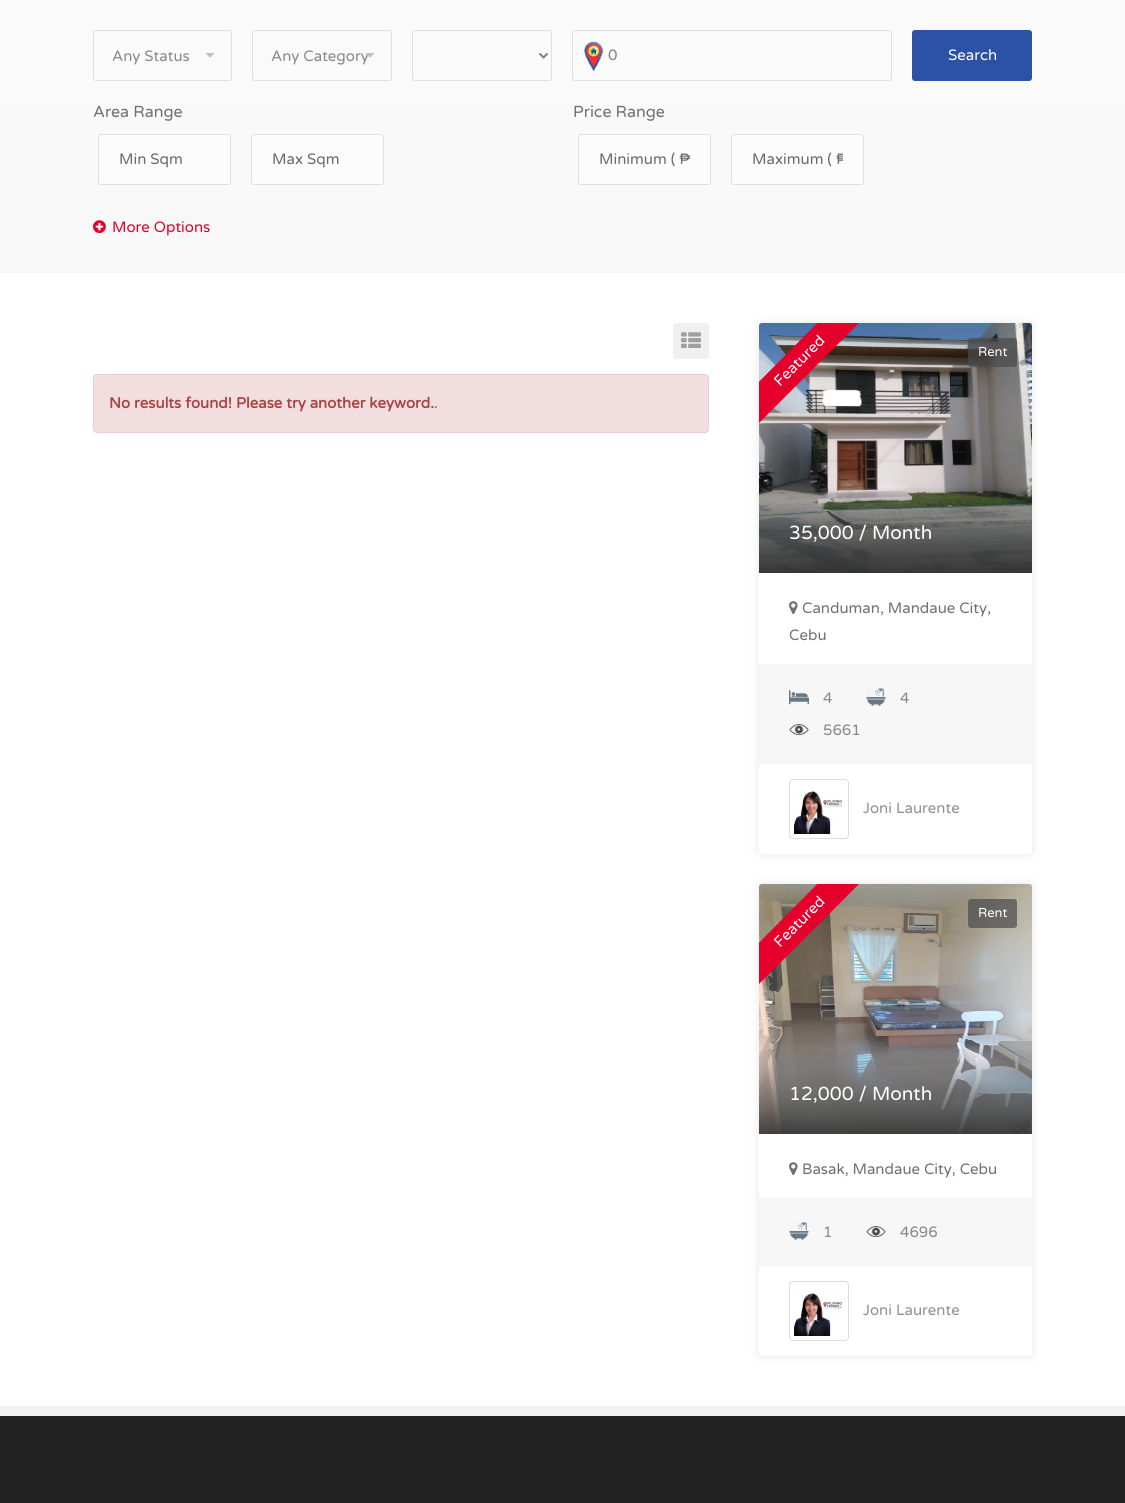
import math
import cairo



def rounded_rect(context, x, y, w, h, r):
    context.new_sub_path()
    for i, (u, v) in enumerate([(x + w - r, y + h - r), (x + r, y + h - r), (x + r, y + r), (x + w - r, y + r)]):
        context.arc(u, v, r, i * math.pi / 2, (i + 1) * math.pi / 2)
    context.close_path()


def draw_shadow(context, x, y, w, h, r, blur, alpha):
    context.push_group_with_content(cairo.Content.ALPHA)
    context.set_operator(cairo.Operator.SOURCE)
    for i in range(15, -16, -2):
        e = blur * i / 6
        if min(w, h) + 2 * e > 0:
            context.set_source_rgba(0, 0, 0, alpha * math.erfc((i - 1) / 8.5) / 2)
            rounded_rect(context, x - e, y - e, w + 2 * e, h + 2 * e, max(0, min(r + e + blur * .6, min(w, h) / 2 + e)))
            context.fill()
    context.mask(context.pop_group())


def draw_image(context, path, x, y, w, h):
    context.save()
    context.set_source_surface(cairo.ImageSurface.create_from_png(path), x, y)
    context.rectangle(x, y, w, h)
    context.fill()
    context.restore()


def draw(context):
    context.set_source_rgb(1, 1, 1)
    context.paint()
    gradient = cairo.LinearGradient(563, 273, 563, -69)
    gradient.add_color_stop_rgba(0, 248 / 255, 248 / 255, 248 / 255, 1)
    gradient.add_color_stop_rgba(1, 251 / 255, 251 / 255, 251 / 255, 1)
    context.set_source(gradient)
    context.rectangle(0, 0, 1125, 273)
    context.fill()
    rounded_rect(context, 93.5, 30.5, 138, 50, 2.5)
    context.set_source_rgb(224 / 255, 224 / 255, 224 / 255)
    context.set_line_width(1)
    context.stroke()
    draw_image(context, "images/1.png", 206, 53, 8, 5)
    rounded_rect(context, 252.5, 30.5, 139, 50, 2.5)
    context.stroke()
    rounded_rect(context, 412.5, 30.5, 139, 50, 2.5)
    context.stroke()
    context.new_path()
    context.move_to(539.5, 53.5)
    context.line_to(543.5, 57.5)
    context.line_to(547.5, 53.5)
    context.set_source_rgb(128 / 255, 128 / 255, 128 / 255)
    context.set_line_width(2)
    context.stroke()
    rounded_rect(context, 572.5, 30.5, 319, 50, 2.5)
    context.set_source_rgb(224 / 255, 224 / 255, 224 / 255)
    context.set_line_width(1)
    context.stroke()
    draw_image(context, "images/3.png", 584, 41, 20, 30)
    context.set_source_rgb(43 / 255, 82 / 255, 165 / 255)
    rounded_rect(context, 912, 30, 120, 51, 3)
    context.fill()
    context.set_source_rgb(252 / 255, 252 / 255, 252 / 255)
    rounded_rect(context, 98.5, 134.5, 132, 50, 2.5)
    context.fill_preserve()
    context.set_source_rgb(224 / 255, 224 / 255, 224 / 255)
    context.stroke()
    context.set_source_rgb(252 / 255, 252 / 255, 252 / 255)
    rounded_rect(context, 251.5, 134.5, 132, 50, 2.5)
    context.fill_preserve()
    context.set_source_rgb(224 / 255, 224 / 255, 224 / 255)
    context.stroke()
    context.set_source_rgb(252 / 255, 252 / 255, 252 / 255)
    rounded_rect(context, 578.5, 134.5, 132, 50, 2.5)
    context.fill_preserve()
    context.set_source_rgb(224 / 255, 224 / 255, 224 / 255)
    context.stroke()
    context.set_source_rgb(252 / 255, 252 / 255, 252 / 255)
    rounded_rect(context, 731.5, 134.5, 132, 50, 2.5)
    context.fill_preserve()
    context.set_source_rgb(224 / 255, 224 / 255, 224 / 255)
    context.stroke()
    draw_image(context, "images/4.png", 93, 220, 13, 14)
    context.set_source_rgb(240 / 255, 240 / 255, 240 / 255)
    rounded_rect(context, 673, 323, 36, 36, 3)
    context.fill()
    draw_image(context, "images/5.png", 681, 332, 20, 16)
    context.set_source_rgb(242 / 255, 222 / 255, 222 / 255)
    rounded_rect(context, 93.5, 374.5, 615, 58, 3.5)
    context.fill_preserve()
    context.set_source_rgb(235 / 255, 204 / 255, 209 / 255)
    context.stroke()
    context.set_source_rgb(0, 0, 0)
    draw_shadow(context, 759, 323, 273, 531, 3, 5, 0.1)
    context.set_source_rgb(1, 1, 1)
    rounded_rect(context, 759, 323, 273, 531, 3)
    context.fill()
    draw_image(context, "images/6.png", 759, 323, 273, 250)
    context.save()
    context.rectangle(759, 323, 273, 100)
    context.clip()
    context.set_source_rgb(228 / 255, 0, 43 / 255)
    context.new_path()
    context.move_to(721, 420)
    context.line_to(858, 282)
    context.curve_to(860, 281, 862, 281, 863, 282)
    context.line_to(879, 299)
    context.curve_to(880, 300, 880, 302, 879, 303)
    context.line_to(742, 440)
    context.curve_to(741, 441, 739, 441, 738, 440)
    context.line_to(721, 424)
    context.curve_to(720, 423, 720, 421, 721, 420)
    context.close_path()
    context.fill()
    context.restore()
    context.set_source_rgba(74 / 255, 74 / 255, 76 / 255, 0.7)
    rounded_rect(context, 968, 338, 49, 29, 3)
    context.fill()
    gradient = cairo.LinearGradient(896, 323, 896, 573)
    gradient.add_color_stop_rgba(0.65, 47 / 255, 47 / 255, 47 / 255, 0)
    gradient.add_color_stop_rgba(1, 47 / 255, 47 / 255, 47 / 255, 0.9)
    context.set_source(gradient)
    context.rectangle(759, 488, 273, 85)
    context.fill()
    draw_image(context, "images/7.png", 789, 601, 9, 13)
    context.set_source_rgb(247 / 255, 247 / 255, 247 / 255)
    context.rectangle(759, 664, 273, 100)
    context.fill()
    draw_image(context, "images/8.png", 789, 690, 20, 15)
    draw_image(context, "images/9.png", 866, 688, 20, 18)
    draw_image(context, "images/10.png", 789, 724, 20, 12)
    rounded_rect(context, 789.5, 779.5, 59, 59, 3.5)
    context.set_source_rgb(221 / 255, 221 / 255, 221 / 255)
    context.stroke()
    draw_image(context, "images/11.png", 794, 791, 48, 43)
    context.set_source_rgb(0, 0, 0)
    draw_shadow(context, 759, 884, 273, 472, 3, 5, 0.1)
    context.set_source_rgb(1, 1, 1)
    rounded_rect(context, 759, 884, 273, 472, 3)
    context.fill()
    draw_image(context, "images/12.png", 759, 884, 273, 250)
    context.save()
    context.rectangle(759, 884, 273, 100)
    context.clip()
    context.set_source_rgb(228 / 255, 0, 43 / 255)
    context.new_path()
    context.move_to(721, 981)
    context.line_to(858, 843)
    context.curve_to(860, 842, 862, 842, 863, 843)
    context.line_to(879, 860)
    context.curve_to(880, 861, 880, 863, 879, 864)
    context.line_to(742, 1001)
    context.curve_to(741, 1002, 739, 1002, 738, 1001)
    context.line_to(721, 985)
    context.curve_to(720, 984, 720, 982, 721, 981)
    context.close_path()
    context.fill()
    context.restore()
    context.set_source_rgba(74 / 255, 74 / 255, 76 / 255, 0.7)
    rounded_rect(context, 968, 899, 49, 29, 3)
    context.fill()
    gradient = cairo.LinearGradient(896, 884, 896, 1134)
    gradient.add_color_stop_rgba(0.65, 47 / 255, 47 / 255, 47 / 255, 0)
    gradient.add_color_stop_rgba(1, 47 / 255, 47 / 255, 47 / 255, 0.9)
    context.set_source(gradient)
    context.rectangle(759, 1049, 273, 85)
    context.fill()
    draw_image(context, "images/7.png", 789, 1162, 9, 13)
    context.set_source_rgb(247 / 255, 247 / 255, 247 / 255)
    context.rectangle(759, 1198, 273, 68)
    context.fill()
    draw_image(context, "images/9.png", 789, 1222, 20, 18)
    draw_image(context, "images/10.png", 866, 1226, 20, 12)
    rounded_rect(context, 789.5, 1281.5, 59, 59, 3.5)
    context.set_source_rgb(221 / 255, 221 / 255, 221 / 255)
    context.stroke()
    draw_image(context, "images/11.png", 794, 1293, 48, 43)
    context.set_source_rgb(242 / 255, 242 / 255, 242 / 255)
    context.rectangle(0, 1406, 1125, 10)
    context.fill()
    context.set_source_rgb(34 / 255, 34 / 255, 34 / 255)
    context.rectangle(0, 1416, 1125, 87)
    context.fill()
    context.select_font_face("Varela Round")
    context.set_font_size(15)
    context.set_source_rgb(136 / 255, 136 / 255, 136 / 255)
    context.move_to(112, 61)
    context.show_text("Any Status")
    context.move_to(271, 61)
    context.show_text("Any Category")
    draw_image(context, "images/2.png", 366, 53, 8, 5)
    context.set_source_rgb(128 / 255, 128 / 255, 128 / 255)
    context.move_to(608, 60)
    context.show_text("0")
    context.set_source_rgb(1, 1, 1)
    context.move_to(948, 60)
    context.show_text("Search")
    context.set_font_size(16)
    context.set_source_rgb(112 / 255, 112 / 255, 112 / 255)
    context.move_to(93, 117)
    context.show_text("Area Range")
    context.set_font_size(15)
    context.set_source_rgb(105 / 255, 105 / 255, 105 / 255)
    context.move_to(119, 164)
    context.show_text("Min Sqm")
    context.move_to(272, 164)
    context.show_text("Max Sqm")
    context.set_font_size(16)
    context.set_source_rgb(112 / 255, 112 / 255, 112 / 255)
    context.move_to(573, 117)
    context.show_text("Price Range")
    context.set_font_size(15)
    context.set_source_rgb(105 / 255, 105 / 255, 105 / 255)
    context.move_to(599, 164)
    context.show_text("Minimum ( ₱")
    context.save()
    context.rectangle(752, 150, 91, 18)
    context.clip()
    context.move_to(752, 164)
    context.show_text("Maximum ( ₱")
    context.restore()
    context.set_source_rgb(228 / 255, 0, 43 / 255)
    context.move_to(112, 232)
    context.show_text("More Options")
    context.select_font_face("Varela Round", cairo.FontSlant.NORMAL, cairo.FontWeight.BOLD)
    context.set_source_rgb(169 / 255, 68 / 255, 66 / 255)
    context.move_to(109, 408)
    context.show_text("No results found! Please try another keyword.")
    context.select_font_face("Varela Round")
    context.move_to(434, 408)
    context.show_text(".")
    context.set_source_rgb(1, 1, 1)
    context.save()
    context.translate(780, 387)
    context.rotate(-45 * math.pi / 180)
    context.move_to(0, 0)
    context.show_text("Featured")
    context.restore()
    context.set_font_size(13)
    context.move_to(978, 356)
    context.show_text("Rent")
    context.set_font_size(19)
    context.move_to(789, 539)
    context.show_text("35,000 / Month")
    context.set_font_size(15)
    context.set_source_rgb(112 / 255, 112 / 255, 112 / 255)
    context.move_to(802, 613)
    context.show_text("Canduman, Mandaue City,")
    context.move_to(789, 640)
    context.show_text("Cebu")
    context.set_source_rgb(136 / 255, 136 / 255, 136 / 255)
    context.move_to(823, 703)
    context.show_text("4")
    context.move_to(900, 703)
    context.show_text("4")
    context.move_to(823, 735)
    context.show_text("5661")
    context.set_source_rgb(144 / 255, 144 / 255, 144 / 255)
    context.move_to(863, 813)
    context.show_text("Joni Laurente")
    context.set_source_rgb(1, 1, 1)
    context.save()
    context.translate(780, 948)
    context.rotate(-45 * math.pi / 180)
    context.move_to(0, 0)
    context.show_text("Featured")
    context.restore()
    context.set_font_size(13)
    context.move_to(978, 917)
    context.show_text("Rent")
    context.set_font_size(19)
    context.move_to(789, 1100)
    context.show_text("12,000 / Month")
    context.set_font_size(15)
    context.set_source_rgb(112 / 255, 112 / 255, 112 / 255)
    context.move_to(802, 1174)
    context.show_text("Basak, Mandaue City, Cebu")
    context.set_source_rgb(136 / 255, 136 / 255, 136 / 255)
    context.move_to(823, 1237)
    context.show_text("1")
    context.move_to(900, 1237)
    context.show_text("4696")
    context.set_source_rgb(144 / 255, 144 / 255, 144 / 255)
    context.move_to(863, 1315)
    context.show_text("Joni Laurente")


surface = cairo.ImageSurface(cairo.Format.RGB24, 1125, 1503)
context = cairo.Context(surface)
options = cairo.FontOptions()
options.set_hint_metrics(cairo.HintMetrics.OFF)
options.set_hint_style(cairo.HintStyle.NONE)
context.set_font_options(options)
context.set_miter_limit(4)
draw(context)
surface.write_to_png("out.png")
